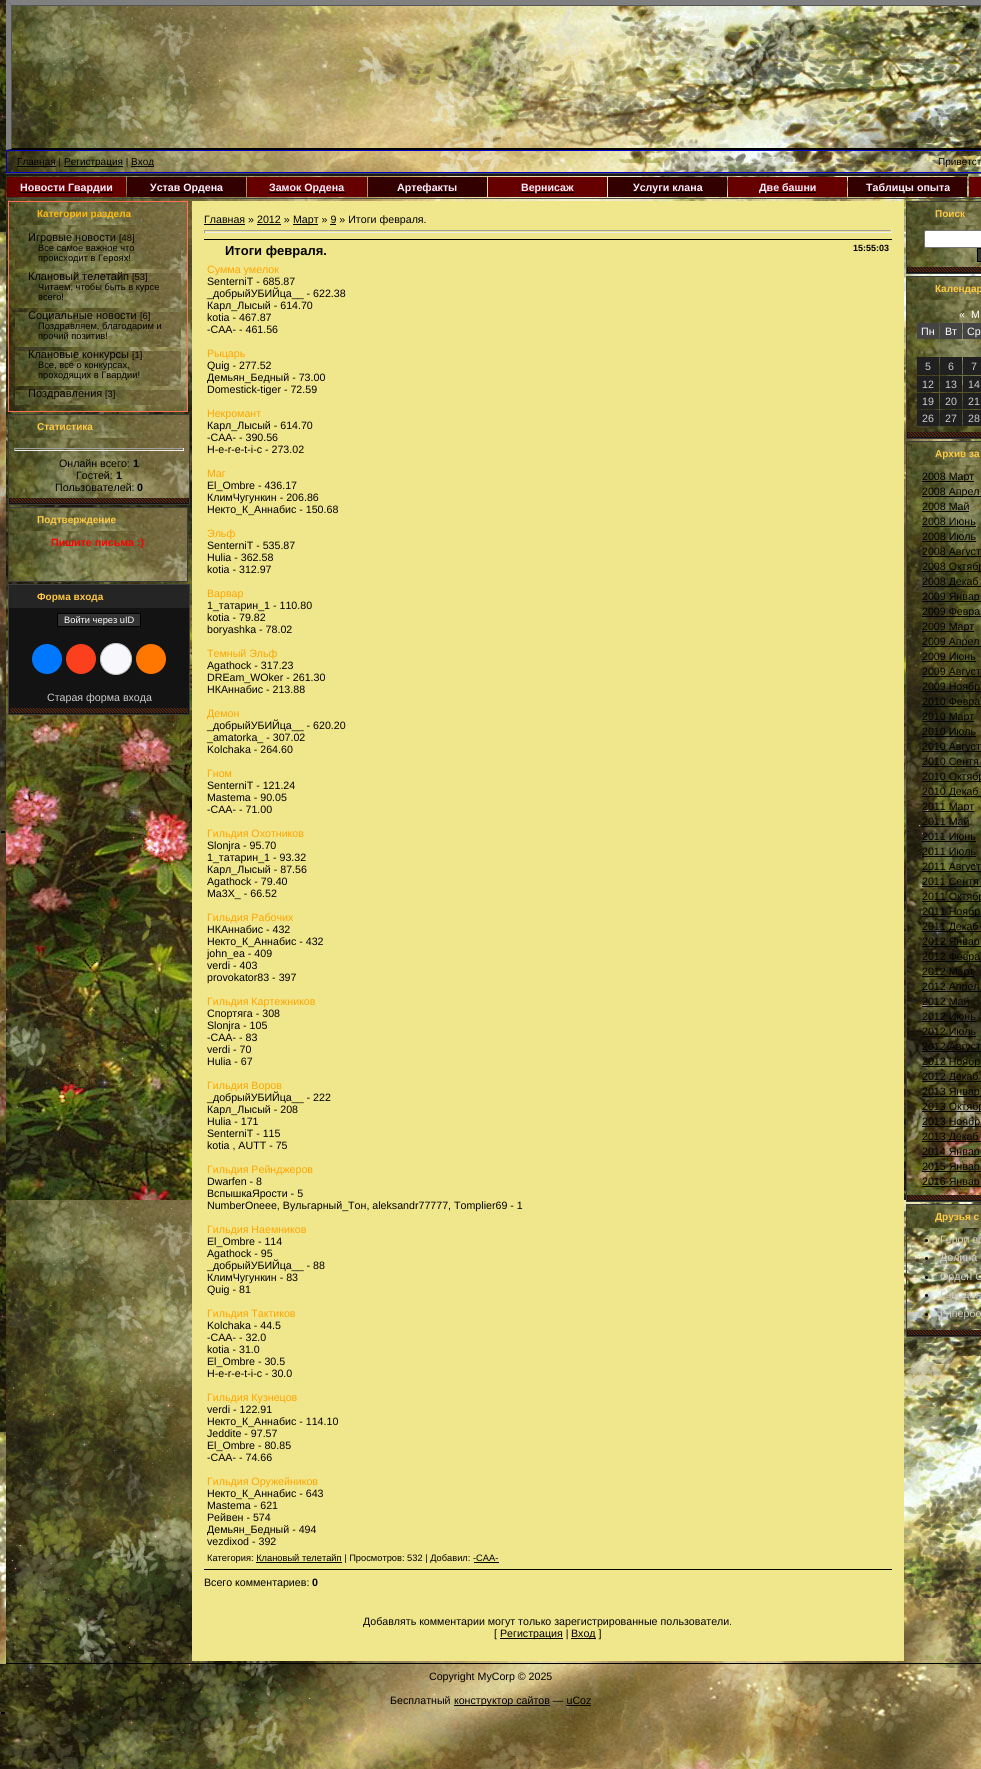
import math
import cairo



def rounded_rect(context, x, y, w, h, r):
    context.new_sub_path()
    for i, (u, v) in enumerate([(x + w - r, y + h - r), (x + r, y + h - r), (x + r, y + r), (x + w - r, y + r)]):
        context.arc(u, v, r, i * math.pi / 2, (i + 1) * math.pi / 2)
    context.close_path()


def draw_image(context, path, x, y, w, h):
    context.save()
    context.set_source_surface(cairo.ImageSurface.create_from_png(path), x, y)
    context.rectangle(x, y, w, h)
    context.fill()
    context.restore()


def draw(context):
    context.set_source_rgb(1, 1, 1)
    context.paint()
    draw_image(context, "images/1.png", 0, 0, 981, 1769)
    draw_image(context, "images/2.png", 0, 0, 6, 1664)
    draw_image(context, "images/3.png", 0, 831, 6, 2)
    context.set_source_rgb(0, 0, 0)
    context.rectangle(6, 1663, 975, 1)
    context.fill()
    context.set_source_rgb(128 / 255, 128 / 255, 128 / 255)
    context.new_path()
    context.move_to(6, 0)
    context.line_to(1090, 0)
    context.line_to(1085, 5)
    context.line_to(11, 5)
    context.close_path()
    context.fill()
    context.set_source_rgb(0, 0, 0)
    context.new_path()
    context.move_to(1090, 150)
    context.line_to(6, 150)
    context.line_to(11, 149)
    context.line_to(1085, 149)
    context.close_path()
    context.fill()
    context.set_source_rgb(128 / 255, 128 / 255, 128 / 255)
    context.new_path()
    context.move_to(6, 150)
    context.line_to(6, 0)
    context.line_to(11, 5)
    context.line_to(11, 149)
    context.close_path()
    context.fill()
    context.set_source_rgb(85 / 255, 85 / 255, 85 / 255)
    context.rectangle(11, 5, 970, 1)
    context.fill()
    context.set_source_rgb(0, 0, 0)
    context.rectangle(11, 148, 970, 1)
    context.fill()
    context.set_source_rgb(85 / 255, 85 / 255, 85 / 255)
    context.rectangle(11, 5, 1, 144)
    context.fill()
    context.rectangle(6.5, 150.5, 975, 22)
    context.set_source_rgb(0, 0, 205 / 255)
    context.set_line_width(1)
    context.stroke()
    context.set_source_rgb(0, 0, 0)
    context.rectangle(17, 166, 39, 1)
    context.fill()
    context.rectangle(64, 166, 59, 1)
    context.fill()
    context.rectangle(131, 166, 23, 1)
    context.fill()
    context.set_source_rgb(73 / 255, 73 / 255, 73 / 255)
    context.rectangle(6, 173, 975, 1)
    context.fill()
    context.rectangle(6, 198, 975, 1)
    context.fill()
    context.set_source_rgb(26 / 255, 26 / 255, 26 / 255)
    context.rectangle(6, 174, 962, 2)
    context.fill()
    context.set_source_rgb(102 / 255, 0, 0)
    context.rectangle(7, 177, 119, 20)
    context.fill()
    context.set_source_rgb(0, 0, 0)
    context.rectangle(20, 192, 93, 1)
    context.fill()
    context.set_source_rgb(51 / 255, 0, 0)
    context.rectangle(127, 177, 119, 20)
    context.fill()
    context.set_source_rgb(0, 0, 0)
    context.rectangle(150, 192, 73, 1)
    context.fill()
    context.set_source_rgb(102 / 255, 0, 0)
    context.rectangle(247, 177, 120, 20)
    context.fill()
    context.set_source_rgb(0, 0, 0)
    context.rectangle(269, 192, 76, 1)
    context.fill()
    context.set_source_rgb(51 / 255, 0, 0)
    context.rectangle(368, 177, 119, 20)
    context.fill()
    context.set_source_rgb(0, 0, 0)
    context.rectangle(397, 192, 60, 1)
    context.fill()
    context.set_source_rgb(102 / 255, 0, 0)
    context.rectangle(488, 177, 119, 20)
    context.fill()
    context.set_source_rgb(0, 0, 0)
    context.rectangle(521, 192, 53, 1)
    context.fill()
    context.set_source_rgb(51 / 255, 0, 0)
    context.rectangle(608, 177, 119, 20)
    context.fill()
    context.set_source_rgb(0, 0, 0)
    context.rectangle(633, 192, 69, 1)
    context.fill()
    context.set_source_rgb(102 / 255, 0, 0)
    context.rectangle(728, 177, 119, 20)
    context.fill()
    context.set_source_rgb(0, 0, 0)
    context.rectangle(759, 192, 57, 1)
    context.fill()
    context.set_source_rgb(51 / 255, 0, 0)
    context.rectangle(848, 177, 119, 20)
    context.fill()
    context.set_source_rgb(0, 0, 0)
    context.rectangle(866, 192, 84, 1)
    context.fill()
    context.set_source_rgb(102 / 255, 0, 0)
    context.rectangle(969, 177, 12, 20)
    context.fill()
    context.rectangle(8.5, 201.5, 179, 210)
    context.set_source_rgb(1, 114 / 255, 86 / 255)
    context.stroke()
    draw_image(context, "images/4.png", 9, 202, 178, 23)
    draw_image(context, "images/5.png", 9, 225, 178, 186)
    draw_image(context, "images/6.png", 15, 234, 166, 35)
    draw_image(context, "images/6.png", 15, 273, 166, 35)
    draw_image(context, "images/6.png", 15, 312, 166, 35)
    draw_image(context, "images/6.png", 15, 351, 166, 35)
    draw_image(context, "images/7.png", 15, 390, 166, 15)
    context.rectangle(8.5, 414.5, 181, 90)
    context.set_source_rgb(60 / 255, 60 / 255, 60 / 255)
    context.stroke()
    draw_image(context, "images/8.png", 9, 415, 180, 23)
    draw_image(context, "images/9.png", 9, 438, 180, 60)
    context.set_source_rgb(159 / 255, 159 / 255, 159 / 255)
    context.rectangle(14, 448, 170, 1)
    context.fill()
    context.set_source_rgb(238 / 255, 238 / 255, 238 / 255)
    context.rectangle(183, 448, 1, 3)
    context.fill()
    context.rectangle(14, 450, 170, 1)
    context.fill()
    context.set_source_rgb(159 / 255, 159 / 255, 159 / 255)
    context.rectangle(14, 448, 1, 3)
    context.fill()
    draw_image(context, "images/10.png", 9, 498, 180, 6)
    context.rectangle(8.5, 507.5, 179, 74)
    context.set_source_rgb(60 / 255, 60 / 255, 60 / 255)
    context.stroke()
    draw_image(context, "images/4.png", 9, 508, 178, 23)
    draw_image(context, "images/11.png", 9, 531, 178, 50)
    context.rectangle(8.5, 584.5, 181, 130)
    context.stroke()
    context.set_source_rgb(37 / 255, 37 / 255, 37 / 255)
    context.rectangle(9, 585, 180, 23)
    context.fill()
    context.set_source_rgb(19 / 255, 19 / 255, 19 / 255)
    context.rectangle(9, 608, 180, 100)
    context.fill()
    context.set_source_rgb(51 / 255, 51 / 255, 51 / 255)
    context.rectangle(57.5, 613.5, 83, 13)
    context.fill_preserve()
    context.set_source_rgb(0, 0, 0)
    context.stroke()
    context.set_source_rgb(0, 119 / 255, 1)
    context.arc(47, 659, 15, 0, 2 * math.pi)
    context.fill()
    context.set_source_rgb(252 / 255, 63 / 255, 29 / 255)
    context.arc(81, 659, 15, 0, 2 * math.pi)
    context.fill()
    context.set_source_rgb(248 / 255, 248 / 255, 252 / 255)
    context.arc(116, 659, 15.5, 0, 2 * math.pi)
    context.fill_preserve()
    context.set_source_rgb(196 / 255, 196 / 255, 196 / 255)
    context.stroke()
    context.set_source_rgb(1, 119 / 255, 0)
    context.arc(151, 659, 15, 0, 2 * math.pi)
    context.fill()
    draw_image(context, "images/10.png", 9, 708, 180, 6)
    context.rectangle(192.5, 201.5, 711, 1459)
    context.set_source_rgb(240 / 255, 230 / 255, 140 / 255)
    context.stroke()
    context.rectangle(193, 202, 710, 1458)
    context.fill()
    context.set_source_rgb(0, 0, 0)
    context.rectangle(204, 224, 41, 1)
    context.fill()
    context.rectangle(293, 224, 25, 1)
    context.fill()
    context.rectangle(257, 224, 24, 1)
    context.fill()
    context.rectangle(330, 224, 6, 1)
    context.fill()
    context.set_source_rgb(159 / 255, 159 / 255, 159 / 255)
    context.rectangle(204, 230, 688, 1)
    context.fill()
    context.set_source_rgb(238 / 255, 238 / 255, 238 / 255)
    context.rectangle(891, 230, 1, 3)
    context.fill()
    context.rectangle(204, 232, 688, 1)
    context.fill()
    context.set_source_rgb(159 / 255, 159 / 255, 159 / 255)
    context.rectangle(204, 230, 1, 3)
    context.fill()
    context.set_source_rgb(0, 0, 0)
    context.rectangle(204, 239, 688, 1)
    context.fill()
    context.rectangle(204, 1569, 688, 1)
    context.fill()
    context.rectangle(256, 1562, 86, 1)
    context.fill()
    context.rectangle(474, 1562, 25, 1)
    context.fill()
    context.rectangle(500, 1638, 63, 1)
    context.fill()
    context.rectangle(571, 1638, 25, 1)
    context.fill()
    context.rectangle(906.5, 201.5, 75, 72)
    context.set_source_rgb(60 / 255, 60 / 255, 60 / 255)
    context.stroke()
    draw_image(context, "images/12.png", 907, 202, 74, 23)
    draw_image(context, "images/13.png", 907, 225, 74, 42)
    context.set_source_rgb(1, 1, 1)
    rounded_rect(context, 924.5, 230.5, 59, 17, 1.5)
    context.fill_preserve()
    context.set_source_rgb(118 / 255, 118 / 255, 118 / 255)
    context.stroke()
    context.set_source_rgb(51 / 255, 51 / 255, 51 / 255)
    context.rectangle(977.5, 248.5, 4, 13)
    context.fill_preserve()
    context.set_source_rgb(0, 0, 0)
    context.stroke()
    draw_image(context, "images/14.png", 907, 267, 74, 6)
    context.rectangle(906.5, 276.5, 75, 162)
    context.set_source_rgb(60 / 255, 60 / 255, 60 / 255)
    context.stroke()
    draw_image(context, "images/12.png", 907, 277, 74, 23)
    draw_image(context, "images/15.png", 907, 300, 74, 132)
    context.set_source_rgb(68 / 255, 68 / 255, 68 / 255)
    context.rectangle(917, 323, 22, 16)
    context.fill()
    context.rectangle(940, 323, 22, 16)
    context.fill()
    context.rectangle(963, 323, 18, 16)
    context.fill()
    context.set_source_rgb(32 / 255, 32 / 255, 32 / 255)
    context.rectangle(917, 357, 22, 18)
    context.fill()
    context.rectangle(940, 357, 22, 18)
    context.fill()
    context.rectangle(963, 357, 18, 18)
    context.fill()
    context.rectangle(917, 376, 22, 16)
    context.fill()
    context.rectangle(940, 376, 22, 16)
    context.fill()
    context.rectangle(963, 376, 18, 16)
    context.fill()
    context.rectangle(917, 393, 22, 16)
    context.fill()
    context.rectangle(940, 393, 22, 16)
    context.fill()
    context.rectangle(963, 393, 18, 16)
    context.fill()
    context.rectangle(917, 410, 22, 16)
    context.fill()
    context.rectangle(940, 410, 22, 16)
    context.fill()
    context.rectangle(963, 410, 18, 16)
    context.fill()
    draw_image(context, "images/14.png", 907, 432, 74, 6)
    context.rectangle(906.5, 441.5, 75, 760)
    context.set_source_rgb(60 / 255, 60 / 255, 60 / 255)
    context.stroke()
    draw_image(context, "images/12.png", 907, 442, 74, 23)
    draw_image(context, "images/16.png", 907, 465, 74, 730)
    context.set_source_rgb(0, 0, 0)
    context.rectangle(922, 481, 52, 1)
    context.fill()
    context.rectangle(922, 496, 59, 1)
    context.fill()
    context.rectangle(922, 511, 47, 1)
    context.fill()
    context.rectangle(922, 526, 54, 1)
    context.fill()
    context.rectangle(922, 541, 54, 1)
    context.fill()
    context.rectangle(922, 556, 59, 1)
    context.fill()
    context.rectangle(922, 571, 59, 1)
    context.fill()
    context.rectangle(922, 586, 59, 1)
    context.fill()
    context.rectangle(922, 601, 59, 1)
    context.fill()
    context.rectangle(922, 616, 59, 1)
    context.fill()
    context.rectangle(922, 631, 52, 1)
    context.fill()
    context.rectangle(922, 646, 59, 1)
    context.fill()
    context.rectangle(922, 661, 54, 1)
    context.fill()
    context.rectangle(922, 676, 59, 1)
    context.fill()
    context.rectangle(922, 691, 59, 1)
    context.fill()
    context.rectangle(922, 706, 59, 1)
    context.fill()
    context.rectangle(922, 721, 52, 1)
    context.fill()
    context.rectangle(922, 736, 54, 1)
    context.fill()
    context.rectangle(922, 751, 59, 1)
    context.fill()
    context.rectangle(922, 766, 59, 1)
    context.fill()
    context.rectangle(922, 781, 59, 1)
    context.fill()
    context.rectangle(922, 796, 59, 1)
    context.fill()
    context.rectangle(922, 811, 52, 1)
    context.fill()
    context.rectangle(922, 826, 47, 1)
    context.fill()
    context.rectangle(922, 841, 54, 1)
    context.fill()
    context.rectangle(922, 856, 54, 1)
    context.fill()
    context.rectangle(922, 871, 59, 1)
    context.fill()
    context.rectangle(922, 886, 59, 1)
    context.fill()
    context.rectangle(922, 901, 59, 1)
    context.fill()
    context.rectangle(922, 916, 59, 1)
    context.fill()
    context.rectangle(922, 931, 59, 1)
    context.fill()
    context.rectangle(922, 946, 59, 1)
    context.fill()
    context.rectangle(922, 961, 59, 1)
    context.fill()
    context.rectangle(922, 976, 52, 1)
    context.fill()
    context.rectangle(922, 991, 59, 1)
    context.fill()
    context.rectangle(922, 1006, 47, 1)
    context.fill()
    context.rectangle(922, 1021, 54, 1)
    context.fill()
    context.rectangle(922, 1036, 54, 1)
    context.fill()
    context.rectangle(922, 1051, 59, 1)
    context.fill()
    context.rectangle(922, 1066, 59, 1)
    context.fill()
    context.rectangle(922, 1081, 59, 1)
    context.fill()
    context.rectangle(922, 1096, 59, 1)
    context.fill()
    context.rectangle(922, 1111, 59, 1)
    context.fill()
    context.rectangle(922, 1126, 59, 1)
    context.fill()
    context.rectangle(922, 1141, 59, 1)
    context.fill()
    context.rectangle(922, 1156, 59, 1)
    context.fill()
    context.rectangle(922, 1171, 59, 1)
    context.fill()
    context.rectangle(922, 1186, 59, 1)
    context.fill()
    draw_image(context, "images/14.png", 907, 1195, 74, 6)
    context.rectangle(906.5, 1204.5, 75, 132)
    context.set_source_rgb(60 / 255, 60 / 255, 60 / 255)
    context.stroke()
    draw_image(context, "images/12.png", 907, 1205, 74, 23)
    context.set_source_rgb(0, 0, 0)
    context.arc(926.5, 1240.5, 1.5, 0, 2 * math.pi)
    context.fill()
    context.arc(926.5, 1258.5, 1.5, 0, 2 * math.pi)
    context.fill()
    context.arc(926.5, 1277.5, 1.5, 0, 2 * math.pi)
    context.fill()
    context.arc(926.5, 1295.5, 1.5, 0, 2 * math.pi)
    context.fill()
    context.arc(926.5, 1314.5, 1.5, 0, 2 * math.pi)
    context.fill()
    draw_image(context, "images/14.png", 907, 1330, 74, 6)
    context.rectangle(454, 1705, 96, 1)
    context.fill()
    context.rectangle(566, 1705, 25, 1)
    context.fill()
    draw_image(context, "images/3.png", 0, 1712, 6, 2)
    context.select_font_face("Liberation Sans")
    context.set_font_size(10)
    context.move_to(17, 165)
    context.show_text("Главная |")
    context.move_to(64, 165)
    context.show_text("Регистрация |")
    context.move_to(131, 165)
    context.show_text("Вход")
    context.move_to(938, 165)
    context.show_text("Приветст")
    context.select_font_face("Liberation Sans", cairo.FontSlant.NORMAL, cairo.FontWeight.BOLD)
    context.set_font_size(10.65)
    context.set_source_rgb(1, 238 / 255, 1)
    context.move_to(20, 191)
    context.show_text("Новости Гвардии")
    context.move_to(150, 191)
    context.show_text("Устав Ордена")
    context.move_to(269, 191)
    context.show_text("Замок Ордена")
    context.move_to(397, 191)
    context.show_text("Артефакты")
    context.move_to(521, 191)
    context.show_text("Вернисаж")
    context.move_to(633, 191)
    context.show_text("Услуги клана")
    context.move_to(759, 191)
    context.show_text("Две башни")
    context.move_to(866, 191)
    context.show_text("Таблицы опыта")
    context.set_font_size(10)
    context.set_source_rgb(1, 185 / 255, 15 / 255)
    context.move_to(37, 217)
    context.show_text("Категории раздела")
    context.select_font_face("Liberation Sans")
    context.set_font_size(11)
    context.set_source_rgb(0, 0, 0)
    context.move_to(28, 241)
    context.show_text("Игровые новости")
    context.set_font_size(9.3)
    context.move_to(119, 241)
    context.show_text("[48]")
    context.move_to(38, 251)
    context.show_text("Все самое важное что")
    context.move_to(38, 261)
    context.show_text("происходит в Героях!")
    context.set_font_size(11)
    context.move_to(28, 280)
    context.show_text("Клановый телетайп")
    context.set_font_size(9.3)
    context.move_to(132, 280)
    context.show_text("[53]")
    context.move_to(38, 290)
    context.show_text("Читаем, чтобы быть в курсе")
    context.move_to(38, 300)
    context.show_text("всего!")
    context.set_font_size(11)
    context.move_to(28, 319)
    context.show_text("Социальные новости")
    context.set_font_size(9.3)
    context.move_to(140, 319)
    context.show_text("[6]")
    context.move_to(38, 329)
    context.show_text("Поздравляем, благодарим и")
    context.move_to(38, 339)
    context.show_text("прочий позитив!")
    context.set_font_size(11)
    context.move_to(28, 358)
    context.show_text("Клановые конкурсы")
    context.set_font_size(9.3)
    context.move_to(132, 358)
    context.show_text("[1]")
    context.move_to(38, 368)
    context.show_text("Все, все о конкурсах,")
    context.move_to(38, 378)
    context.show_text("проходящих в Гвардии!")
    context.set_font_size(11)
    context.move_to(28, 397)
    context.show_text("Поздравления")
    context.set_font_size(9.3)
    context.move_to(105, 397)
    context.show_text("[3]")
    context.select_font_face("Liberation Sans", cairo.FontSlant.NORMAL, cairo.FontWeight.BOLD)
    context.set_font_size(10)
    context.set_source_rgb(1, 202 / 255, 66 / 255)
    context.move_to(37, 430)
    context.show_text("Статистика")
    context.select_font_face("Liberation Sans")
    context.set_font_size(10.65)
    context.set_source_rgb(0, 0, 0)
    context.move_to(59, 467)
    context.show_text("Онлайн всего:")
    context.select_font_face("Liberation Sans", cairo.FontSlant.NORMAL, cairo.FontWeight.BOLD)
    context.move_to(133, 467)
    context.show_text("1")
    context.select_font_face("Liberation Sans")
    context.move_to(76, 479)
    context.show_text("Гостей:")
    context.select_font_face("Liberation Sans", cairo.FontSlant.NORMAL, cairo.FontWeight.BOLD)
    context.move_to(116, 479)
    context.show_text("1")
    context.select_font_face("Liberation Sans")
    context.move_to(55, 491)
    context.show_text("Пользователей:")
    context.select_font_face("Liberation Sans", cairo.FontSlant.NORMAL, cairo.FontWeight.BOLD)
    context.move_to(137, 491)
    context.show_text("0")
    context.set_font_size(10)
    context.set_source_rgb(1, 202 / 255, 66 / 255)
    context.move_to(37, 523)
    context.show_text("Подтверждение")
    context.set_font_size(10.65)
    context.set_source_rgb(1, 0, 0)
    context.move_to(51, 546)
    context.show_text("Пишите письма :)")
    context.set_font_size(10)
    context.set_source_rgb(1, 202 / 255, 66 / 255)
    context.move_to(37, 600)
    context.show_text("Форма входа")
    context.select_font_face("Liberation Sans")
    context.set_font_size(9.3)
    context.set_source_rgb(1, 1, 1)
    context.move_to(64, 623)
    context.show_text("Войти через uID")
    context.set_font_size(10.65)
    context.set_source_rgb(204 / 255, 204 / 255, 204 / 255)
    context.move_to(47, 701)
    context.show_text("Старая форма входа")
    context.set_source_rgb(0, 0, 0)
    context.move_to(204, 223)
    context.show_text("Главная » 2012 »")
    context.move_to(293, 223)
    context.show_text("Март » 9 » Итоги февраля.")
    context.select_font_face("Liberation Sans", cairo.FontSlant.NORMAL, cairo.FontWeight.BOLD)
    context.set_font_size(13)
    context.move_to(225, 255)
    context.show_text("Итоги февраля.")
    context.set_font_size(9)
    context.move_to(853, 251)
    context.show_text("15:55:03")
    context.select_font_face("Liberation Sans")
    context.set_font_size(10.65)
    context.set_source_rgb(1, 165 / 255, 0)
    context.move_to(207, 273)
    context.show_text("Сумма умелок")
    context.set_source_rgb(0, 0, 0)
    context.move_to(207, 285)
    context.show_text("SenterniT - 685.87")
    context.move_to(207, 297)
    context.show_text("_добрыйУБИЙца__ - 622.38")
    context.move_to(207, 309)
    context.show_text("Карл_Лысый - 614.70")
    context.move_to(207, 321)
    context.show_text("kotia - 467.87")
    context.move_to(207, 333)
    context.show_text("-CAA- - 461.56")
    context.set_source_rgb(1, 165 / 255, 0)
    context.move_to(207, 357)
    context.show_text("Рыцарь")
    context.set_source_rgb(0, 0, 0)
    context.move_to(207, 369)
    context.show_text("Quig - 277.52")
    context.move_to(207, 381)
    context.show_text("Демьян_Бедный - 73.00")
    context.move_to(207, 393)
    context.show_text("Domestick-tiger - 72.59")
    context.set_source_rgb(1, 165 / 255, 0)
    context.move_to(207, 417)
    context.show_text("Некромант")
    context.set_source_rgb(0, 0, 0)
    context.move_to(207, 429)
    context.show_text("Карл_Лысый - 614.70")
    context.move_to(207, 441)
    context.show_text("-CAA- - 390.56")
    context.move_to(207, 453)
    context.show_text("H-e-r-e-t-i-c - 273.02")
    context.set_source_rgb(1, 165 / 255, 0)
    context.move_to(207, 477)
    context.show_text("Маг")
    context.set_source_rgb(0, 0, 0)
    context.move_to(207, 489)
    context.show_text("El_Ombre - 436.17")
    context.move_to(207, 501)
    context.show_text("КлимЧугункин - 206.86")
    context.move_to(207, 513)
    context.show_text("Некто_К_Аннабис - 150.68")
    context.set_source_rgb(1, 165 / 255, 0)
    context.move_to(207, 537)
    context.show_text("Эльф")
    context.set_source_rgb(0, 0, 0)
    context.move_to(207, 549)
    context.show_text("SenterniT - 535.87")
    context.move_to(207, 561)
    context.show_text("Hulia - 362.58")
    context.move_to(207, 573)
    context.show_text("kotia - 312.97")
    context.set_source_rgb(1, 165 / 255, 0)
    context.move_to(207, 597)
    context.show_text("Варвар")
    context.set_source_rgb(0, 0, 0)
    context.move_to(207, 609)
    context.show_text("1_татарин_1 - 110.80")
    context.move_to(207, 621)
    context.show_text("kotia - 79.82")
    context.move_to(207, 633)
    context.show_text("boryashka - 78.02")
    context.set_source_rgb(1, 165 / 255, 0)
    context.move_to(207, 657)
    context.show_text("Темный Эльф")
    context.set_source_rgb(0, 0, 0)
    context.move_to(207, 669)
    context.show_text("Agathock - 317.23")
    context.move_to(207, 681)
    context.show_text("DREam_WOker - 261.30")
    context.move_to(207, 693)
    context.show_text("НКАннабис - 213.88")
    context.set_source_rgb(1, 165 / 255, 0)
    context.move_to(207, 717)
    context.show_text("Демон")
    context.set_source_rgb(0, 0, 0)
    context.move_to(207, 729)
    context.show_text("_добрыйУБИЙца__ - 620.20")
    context.move_to(207, 741)
    context.show_text("_amatorka_ - 307.02")
    context.move_to(207, 753)
    context.show_text("Kolchaka - 264.60")
    context.set_source_rgb(1, 165 / 255, 0)
    context.move_to(207, 777)
    context.show_text("Гном")
    context.set_source_rgb(0, 0, 0)
    context.move_to(207, 789)
    context.show_text("SenterniT - 121.24")
    context.move_to(207, 801)
    context.show_text("Mastema - 90.05")
    context.move_to(207, 813)
    context.show_text("-CAA- - 71.00")
    context.set_source_rgb(1, 165 / 255, 0)
    context.move_to(207, 837)
    context.show_text("Гильдия Охотников")
    context.set_source_rgb(0, 0, 0)
    context.move_to(207, 849)
    context.show_text("Slonjra - 95.70")
    context.move_to(207, 861)
    context.show_text("1_татарин_1 - 93.32")
    context.move_to(207, 873)
    context.show_text("Карл_Лысый - 87.56")
    context.move_to(207, 885)
    context.show_text("Agathock - 79.40")
    context.move_to(207, 897)
    context.show_text("Ma3X_ - 66.52")
    context.set_source_rgb(1, 165 / 255, 0)
    context.move_to(207, 921)
    context.show_text("Гильдия Рабочих")
    context.set_source_rgb(0, 0, 0)
    context.move_to(207, 933)
    context.show_text("НКАннабис - 432")
    context.move_to(207, 945)
    context.show_text("Некто_К_Аннабис - 432")
    context.move_to(207, 957)
    context.show_text("john_ea - 409")
    context.move_to(207, 969)
    context.show_text("verdi - 403")
    context.move_to(207, 981)
    context.show_text("provokator83 - 397")
    context.set_source_rgb(1, 165 / 255, 0)
    context.move_to(207, 1005)
    context.show_text("Гильдия Картежников")
    context.set_source_rgb(0, 0, 0)
    context.move_to(207, 1017)
    context.show_text("Спортяга - 308")
    context.move_to(207, 1029)
    context.show_text("Slonjra - 105")
    context.move_to(207, 1041)
    context.show_text("-CAA- - 83")
    context.move_to(207, 1053)
    context.show_text("verdi - 70")
    context.move_to(207, 1065)
    context.show_text("Hulia - 67")
    context.set_source_rgb(1, 165 / 255, 0)
    context.move_to(207, 1089)
    context.show_text("Гильдия Воров")
    context.set_source_rgb(0, 0, 0)
    context.move_to(207, 1101)
    context.show_text("_добрыйУБИЙца__ - 222")
    context.move_to(207, 1113)
    context.show_text("Карл_Лысый - 208")
    context.move_to(207, 1125)
    context.show_text("Hulia - 171")
    context.move_to(207, 1137)
    context.show_text("SenterniT - 115")
    context.move_to(207, 1149)
    context.show_text("kotia , AUTT - 75")
    context.set_source_rgb(1, 165 / 255, 0)
    context.move_to(207, 1173)
    context.show_text("Гильдия Рейнджеров")
    context.set_source_rgb(0, 0, 0)
    context.move_to(207, 1185)
    context.show_text("Dwarfen - 8")
    context.move_to(207, 1197)
    context.show_text("ВспышкаЯрости - 5")
    context.move_to(207, 1209)
    context.show_text("NumberOneee, Вульгарный_Тон, aleksandr77777, Tomplier69 - 1")
    context.set_source_rgb(1, 165 / 255, 0)
    context.move_to(207, 1233)
    context.show_text("Гильдия Наемников")
    context.set_source_rgb(0, 0, 0)
    context.move_to(207, 1245)
    context.show_text("El_Ombre - 114")
    context.move_to(207, 1257)
    context.show_text("Agathock - 95")
    context.move_to(207, 1269)
    context.show_text("_добрыйУБИЙца__ - 88")
    context.move_to(207, 1281)
    context.show_text("КлимЧугункин - 83")
    context.move_to(207, 1293)
    context.show_text("Quig - 81")
    context.set_source_rgb(1, 165 / 255, 0)
    context.move_to(207, 1317)
    context.show_text("Гильдия Тактиков")
    context.set_source_rgb(0, 0, 0)
    context.move_to(207, 1329)
    context.show_text("Kolchaka - 44.5")
    context.move_to(207, 1341)
    context.show_text("-CAA- - 32.0")
    context.move_to(207, 1353)
    context.show_text("kotia - 31.0")
    context.move_to(207, 1365)
    context.show_text("El_Ombre - 30.5")
    context.move_to(207, 1377)
    context.show_text("H-e-r-e-t-i-c - 30.0")
    context.set_source_rgb(1, 165 / 255, 0)
    context.move_to(207, 1401)
    context.show_text("Гильдия Кузнецов")
    context.set_source_rgb(0, 0, 0)
    context.move_to(207, 1413)
    context.show_text("verdi - 122.91")
    context.move_to(207, 1425)
    context.show_text("Некто_К_Аннабис - 114.10")
    context.move_to(207, 1437)
    context.show_text("Jeddite - 97.57")
    context.move_to(207, 1449)
    context.show_text("El_Ombre - 80.85")
    context.move_to(207, 1461)
    context.show_text("-CAA- - 74.66")
    context.set_source_rgb(1, 165 / 255, 0)
    context.move_to(207, 1485)
    context.show_text("Гильдия Оружейников")
    context.set_source_rgb(0, 0, 0)
    context.move_to(207, 1497)
    context.show_text("Некто_К_Аннабис - 643")
    context.move_to(207, 1509)
    context.show_text("Mastema - 621")
    context.move_to(207, 1521)
    context.show_text("Рейвен - 574")
    context.move_to(207, 1533)
    context.show_text("Демьян_Бедный - 494")
    context.move_to(207, 1545)
    context.show_text("vezdixod - 392")
    context.set_font_size(9.3)
    context.move_to(207, 1561)
    context.show_text("Категория: Клановый телетайп | Просмотров: 532 | Добавил: -CAA-")
    context.set_font_size(10.65)
    context.move_to(204, 1586)
    context.show_text("Всего комментариев:")
    context.select_font_face("Liberation Sans", cairo.FontSlant.NORMAL, cairo.FontWeight.BOLD)
    context.move_to(312, 1586)
    context.show_text("0")
    context.select_font_face("Liberation Sans")
    context.move_to(363, 1625)
    context.show_text("Добавлять комментарии могут только зарегистрированные пользователи.")
    context.move_to(494, 1637)
    context.show_text("[")
    context.move_to(500, 1637)
    context.show_text("Регистрация |")
    context.move_to(571, 1637)
    context.show_text("Вход ]")
    context.select_font_face("Liberation Sans", cairo.FontSlant.NORMAL, cairo.FontWeight.BOLD)
    context.set_font_size(10)
    context.set_source_rgb(1, 202 / 255, 66 / 255)
    context.move_to(935, 217)
    context.show_text("Поиск")
    context.move_to(935, 292)
    context.show_text("Календар")
    context.select_font_face("Liberation Sans")
    context.set_font_size(10.65)
    context.set_source_rgb(1, 1, 1)
    context.move_to(959, 318)
    context.show_text("«")
    context.move_to(971, 318)
    context.show_text("М")
    context.move_to(921, 335)
    context.show_text("Пн")
    context.move_to(945, 335)
    context.show_text("Вт")
    context.move_to(967, 335)
    context.show_text("Ср")
    context.set_source_rgb(204 / 255, 204 / 255, 204 / 255)
    context.move_to(925, 370)
    context.show_text("5")
    context.move_to(948, 370)
    context.show_text("6")
    context.move_to(971, 370)
    context.show_text("7")
    context.move_to(922, 388)
    context.show_text("12")
    context.move_to(945, 388)
    context.show_text("13")
    context.move_to(968, 388)
    context.show_text("14")
    context.move_to(922, 405)
    context.show_text("19")
    context.move_to(945, 405)
    context.show_text("20")
    context.move_to(968, 405)
    context.show_text("21")
    context.move_to(922, 422)
    context.show_text("26")
    context.move_to(945, 422)
    context.show_text("27")
    context.move_to(968, 422)
    context.show_text("28")
    context.select_font_face("Liberation Sans", cairo.FontSlant.NORMAL, cairo.FontWeight.BOLD)
    context.set_font_size(10)
    context.set_source_rgb(1, 202 / 255, 66 / 255)
    context.move_to(935, 457)
    context.show_text("Архив за")
    context.select_font_face("Liberation Sans")
    context.set_font_size(10.65)
    context.set_source_rgb(0, 0, 0)
    context.move_to(922, 480)
    context.show_text("2008 Март")
    context.move_to(922, 495)
    context.show_text("2008 Апрел")
    context.move_to(922, 510)
    context.show_text("2008 Май")
    context.move_to(922, 525)
    context.show_text("2008 Июнь")
    context.move_to(922, 540)
    context.show_text("2008 Июль")
    context.move_to(922, 555)
    context.show_text("2008 Август")
    context.move_to(922, 570)
    context.show_text("2008 Октябр")
    context.move_to(922, 585)
    context.show_text("2008 Декаб")
    context.move_to(922, 600)
    context.show_text("2009 Январ")
    context.move_to(922, 615)
    context.show_text("2009 Февра")
    context.move_to(922, 630)
    context.show_text("2009 Март")
    context.move_to(922, 645)
    context.show_text("2009 Апрел")
    context.move_to(922, 660)
    context.show_text("2009 Июнь")
    context.move_to(922, 675)
    context.show_text("2009 Август")
    context.move_to(922, 690)
    context.show_text("2009 Ноябр")
    context.move_to(922, 705)
    context.show_text("2010 Февра")
    context.move_to(922, 720)
    context.show_text("2010 Март")
    context.move_to(922, 735)
    context.show_text("2010 Июль")
    context.move_to(922, 750)
    context.show_text("2010 Август")
    context.move_to(922, 765)
    context.show_text("2010 Сентя")
    context.move_to(922, 780)
    context.show_text("2010 Октябр")
    context.move_to(922, 795)
    context.show_text("2010 Декаб")
    context.move_to(922, 810)
    context.show_text("2011 Март")
    context.move_to(922, 825)
    context.show_text("2011 Май")
    context.move_to(922, 840)
    context.show_text("2011 Июнь")
    context.move_to(922, 855)
    context.show_text("2011 Июль")
    context.move_to(922, 870)
    context.show_text("2011 Август")
    context.move_to(922, 885)
    context.show_text("2011 Сентя")
    context.move_to(922, 900)
    context.show_text("2011 Октябр")
    context.move_to(922, 915)
    context.show_text("2011 Ноябр")
    context.move_to(922, 930)
    context.show_text("2011 Декаб")
    context.move_to(922, 945)
    context.show_text("2012 Январ")
    context.move_to(922, 960)
    context.show_text("2012 Февра")
    context.move_to(922, 975)
    context.show_text("2012 Март")
    context.move_to(922, 990)
    context.show_text("2012 Апрел")
    context.move_to(922, 1005)
    context.show_text("2012 Май")
    context.move_to(922, 1020)
    context.show_text("2012 Июнь")
    context.move_to(922, 1035)
    context.show_text("2012 Июль")
    context.move_to(922, 1050)
    context.show_text("2012 Август")
    context.move_to(922, 1065)
    context.show_text("2012 Ноябр")
    context.move_to(922, 1080)
    context.show_text("2012 Декаб")
    context.move_to(922, 1095)
    context.show_text("2013 Январ")
    context.move_to(922, 1110)
    context.show_text("2013 Октябр")
    context.move_to(922, 1125)
    context.show_text("2013 Ноябр")
    context.move_to(922, 1140)
    context.show_text("2013 Декаб")
    context.move_to(922, 1155)
    context.show_text("2014 Январ")
    context.move_to(922, 1170)
    context.show_text("2015 Январ")
    context.move_to(922, 1185)
    context.show_text("2016 Январ")
    context.select_font_face("Liberation Sans", cairo.FontSlant.NORMAL, cairo.FontWeight.BOLD)
    context.set_font_size(10)
    context.set_source_rgb(1, 202 / 255, 66 / 255)
    context.move_to(935, 1220)
    context.show_text("Друзья с")
    context.select_font_face("Liberation Sans")
    context.set_font_size(10.65)
    context.set_source_rgb(204 / 255, 204 / 255, 204 / 255)
    context.move_to(940, 1243)
    context.show_text("Герои во")
    context.move_to(940, 1261)
    context.show_text("Долина")
    context.move_to(940, 1280)
    context.show_text("Орден С")
    context.move_to(940, 1298)
    context.show_text("Гвардия")
    context.move_to(940, 1317)
    context.show_text("Гипербо")
    context.set_source_rgb(0, 0, 0)
    context.move_to(429, 1680)
    context.show_text("Copyright MyCorp © 2025")
    context.move_to(390, 1704)
    context.show_text("Бесплатный")
    context.move_to(454, 1704)
    context.show_text("конструктор сайтов — uCoz")


surface = cairo.ImageSurface(cairo.Format.RGB24, 981, 1769)
context = cairo.Context(surface)
options = cairo.FontOptions()
options.set_hint_metrics(cairo.HintMetrics.OFF)
options.set_hint_style(cairo.HintStyle.NONE)
context.set_font_options(options)
context.set_miter_limit(4)
draw(context)
surface.write_to_png("out.png")
